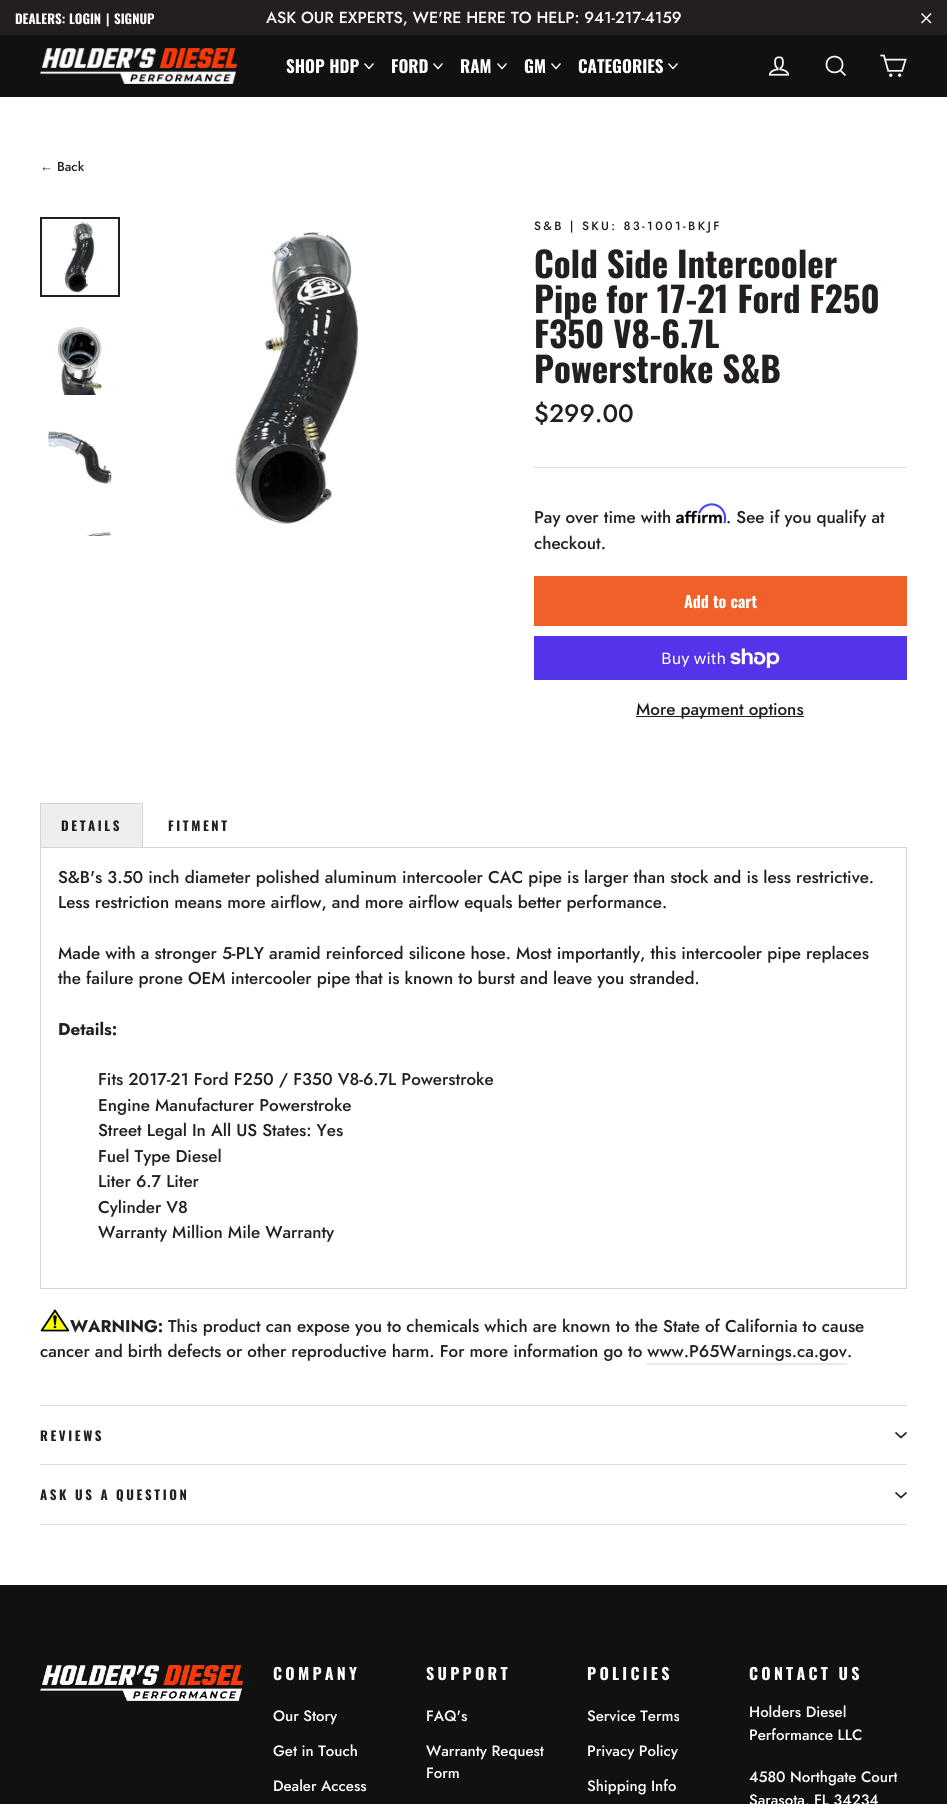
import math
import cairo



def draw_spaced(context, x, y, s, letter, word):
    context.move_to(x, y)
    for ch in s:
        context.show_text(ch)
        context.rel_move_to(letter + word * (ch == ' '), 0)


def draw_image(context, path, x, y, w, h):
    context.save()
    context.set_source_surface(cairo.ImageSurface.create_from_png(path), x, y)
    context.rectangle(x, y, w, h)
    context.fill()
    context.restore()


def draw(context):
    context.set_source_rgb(1, 1, 1)
    context.paint()
    context.set_source_rgb(35 / 255, 31 / 255, 32 / 255)
    context.rectangle(0, 0, 947, 35)
    context.fill()
    context.new_path()
    context.move_to(921.5, 13.5)
    context.line_to(931, 23)
    context.move_to(931, 13.5)
    context.line_to(921.5, 23)
    context.set_source_rgb(254 / 255, 254 / 255, 254 / 255)
    context.set_line_width(1.4)
    context.stroke()
    context.set_source_rgb(17 / 255, 17 / 255, 17 / 255)
    context.rectangle(0, 35, 947, 62)
    context.fill()
    draw_image(context, "images/1.png", 40, 48, 197, 36)
    context.new_path()
    context.move_to(364.5, 63.5)
    context.line_to(369, 68.5)
    context.line_to(373.5, 63.5)
    context.set_source_rgb(1, 1, 1)
    context.stroke()
    context.new_path()
    context.move_to(433.5, 63.5)
    context.line_to(438, 68.5)
    context.line_to(442.5, 63.5)
    context.stroke()
    context.new_path()
    context.move_to(497.5, 63.5)
    context.line_to(502, 68.5)
    context.line_to(506.5, 63.5)
    context.stroke()
    context.new_path()
    context.move_to(551.5, 63.5)
    context.line_to(556, 68.5)
    context.line_to(560.5, 63.5)
    context.stroke()
    context.new_path()
    context.move_to(668.5, 63.5)
    context.line_to(673, 68.5)
    context.line_to(677.5, 63.5)
    context.stroke()
    draw_image(context, "images/2.png", 768, 56, 22, 20)
    context.new_path()
    context.move_to(842.5, 64.5)
    context.curve_to(842.5, 75, 826.5, 75, 826.5, 64.5)
    context.curve_to(826.5, 54, 842.5, 54, 842.5, 64.5)
    context.close_path()
    context.move_to(845.5, 75.5)
    context.line_to(840.5, 70.5)
    context.set_source_rgb(241 / 255, 241 / 255, 241 / 255)
    context.set_line_width(1.8)
    context.stroke()
    draw_image(context, "images/3.png", 880, 54, 27, 23)
    context.rectangle(41, 218, 78, 78)
    context.set_source_rgb(35 / 255, 31 / 255, 32 / 255)
    context.set_line_width(2)
    context.stroke()
    draw_image(context, "images/4.png", 64, 222, 31, 71)
    draw_image(context, "images/5.png", 57, 326, 45, 69)
    draw_image(context, "images/6.png", 48, 431, 64, 53)
    draw_image(context, "images/7.png", 87, 532, 24, 4)
    draw_image(context, "images/8.png", 235, 231, 125, 293)
    context.set_source_rgb(219 / 255, 220 / 255, 221 / 255)
    context.rectangle(534, 467, 373, 1)
    context.fill()
    draw_image(context, "images/10.png", 676, 510, 46, 14)
    draw_image(context, "images/9.png", 698, 503, 29, 21)
    context.set_source_rgb(240 / 255, 97 / 255, 42 / 255)
    context.rectangle(534, 576, 373, 50)
    context.fill()
    context.set_source_rgb(84 / 255, 51 / 255, 235 / 255)
    context.rectangle(534, 636, 373, 44)
    context.fill()
    draw_image(context, "images/11.png", 730, 648, 50, 20)
    context.set_source_rgb(35 / 255, 31 / 255, 32 / 255)
    context.rectangle(636, 716, 168, 1)
    context.fill()
    context.set_source_rgb(238 / 255, 238 / 255, 238 / 255)
    context.rectangle(41, 804, 101, 43)
    context.fill()
    context.set_source_rgb(214 / 255, 214 / 255, 214 / 255)
    context.rectangle(40, 803, 103, 1)
    context.fill()
    context.rectangle(142, 803, 1, 44)
    context.fill()
    context.rectangle(40, 803, 1, 44)
    context.fill()
    context.rectangle(40.5, 847.5, 866, 441)
    context.set_line_width(1)
    context.stroke()
    draw_image(context, "images/12.png", 40, 1309, 30, 23)
    context.set_source_rgb(233 / 255, 233 / 255, 233 / 255)
    context.rectangle(647, 1363, 200, 2)
    context.fill()
    context.set_source_rgb(219 / 255, 220 / 255, 221 / 255)
    context.rectangle(40, 1524, 867, 1)
    context.fill()
    context.rectangle(40, 1405, 867, 1)
    context.fill()
    context.new_path()
    context.move_to(895.5, 1432.5)
    context.line_to(901, 1437.5)
    context.line_to(906.5, 1432.5)
    context.set_source_rgb(35 / 255, 31 / 255, 32 / 255)
    context.set_line_width(1.7)
    context.stroke()
    context.set_source_rgb(219 / 255, 220 / 255, 221 / 255)
    context.rectangle(40, 1464, 867, 1)
    context.fill()
    context.new_path()
    context.move_to(895.5, 1492.5)
    context.line_to(901, 1497.5)
    context.line_to(906.5, 1492.5)
    context.set_source_rgb(35 / 255, 31 / 255, 32 / 255)
    context.stroke()
    context.set_source_rgb(17 / 255, 17 / 255, 17 / 255)
    context.rectangle(0, 1585, 947, 219)
    context.fill()
    draw_image(context, "images/13.png", 40, 1665, 203, 36)
    context.select_font_face("Oswald", cairo.FontSlant.NORMAL, cairo.FontWeight.BOLD)
    context.set_font_size(13)
    context.set_source_rgb(1, 1, 1)
    context.move_to(15, 24)
    context.show_text("DEALERS:")
    context.move_to(69, 24)
    context.show_text("LOGIN")
    context.move_to(106, 24)
    context.show_text("|")
    context.move_to(114, 24)
    context.show_text("SIGNUP")
    context.select_font_face("Jost Medium")
    context.set_font_size(16)
    context.move_to(266, 23)
    context.show_text("ASK OUR EXPERTS, WE'RE HERE TO HELP: 941-217-4159")
    context.select_font_face("Oswald", cairo.FontSlant.NORMAL, cairo.FontWeight.BOLD)
    context.set_font_size(17)
    context.move_to(286, 73)
    context.show_text("SHOP HDP")
    context.move_to(391, 73)
    context.show_text("FORD")
    context.move_to(460, 73)
    context.show_text("RAM")
    context.move_to(524, 73)
    context.show_text("GM")
    context.move_to(578, 73)
    context.show_text("CATEGORIES")
    context.select_font_face("Liberation Sans")
    context.set_font_size(13)
    context.set_source_rgb(35 / 255, 31 / 255, 32 / 255)
    context.move_to(40, 171)
    context.show_text("←")
    context.select_font_face("Jost Medium")
    context.move_to(57, 171)
    context.show_text("Back")
    context.set_font_size(12)
    draw_spaced(context, 534, 230, "S&B | SKU: 83-1001-BKJF", 2.4, 0)
    context.select_font_face("Oswald", cairo.FontSlant.NORMAL, cairo.FontWeight.BOLD)
    context.set_font_size(35)
    context.move_to(534, 278)
    context.show_text("Cold Side Intercooler")
    context.move_to(534, 313)
    context.show_text("Pipe for 17-21 Ford F250")
    context.move_to(534, 348)
    context.show_text("F350 V8-6.7L")
    context.move_to(534, 383)
    context.show_text("Powerstroke S&B")
    context.select_font_face("Jost Medium")
    context.set_font_size(25)
    context.move_to(534, 422)
    context.show_text("$299.00")
    context.set_font_size(17)
    context.move_to(534, 523)
    context.show_text("Pay over time with")
    context.move_to(726, 523)
    context.show_text(". See if you qualify at")
    context.move_to(534, 549)
    context.show_text("checkout.")
    context.select_font_face("Oswald", cairo.FontSlant.NORMAL, cairo.FontWeight.BOLD)
    context.set_font_size(16)
    context.set_source_rgb(1, 1, 1)
    context.move_to(684, 608)
    context.show_text("Add to cart")
    context.select_font_face("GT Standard")
    context.move_to(661, 664)
    context.show_text("Buy with")
    context.select_font_face("Jost Medium")
    context.set_font_size(17)
    context.set_source_rgb(35 / 255, 31 / 255, 32 / 255)
    context.move_to(636, 715)
    context.show_text("More payment options")
    context.select_font_face("Oswald", cairo.FontSlant.NORMAL, cairo.FontWeight.BOLD)
    context.set_font_size(13)
    draw_spaced(context, 61, 831, "DETAILS", 2.6, 0)
    draw_spaced(context, 168, 831, "FITMENT", 2.6, 0)
    context.select_font_face("Jost Medium")
    context.set_font_size(17)
    context.move_to(58, 883)
    context.show_text("S&B's 3.50 inch diameter polished aluminum intercooler CAC pipe is larger than stock and is less restrictive.")
    context.move_to(58, 908)
    context.show_text("Less restriction means more airflow, and more airflow equals better performance.")
    context.move_to(58, 959)
    context.show_text("Made with a stronger 5-PLY aramid reinforced silicone hose. Most importantly, this intercooler pipe replaces")
    context.move_to(58, 984)
    context.show_text("the failure prone OEM intercooler pipe that is known to burst and leave you stranded.")
    context.select_font_face("Jost", cairo.FontSlant.NORMAL, cairo.FontWeight.BOLD)
    context.move_to(58, 1035)
    context.show_text("Details:")
    context.select_font_face("Jost Medium")
    context.move_to(98, 1085)
    context.show_text("Fits 2017-21 Ford F250 / F350 V8-6.7L Powerstroke")
    context.move_to(98, 1111)
    context.show_text("Engine Manufacturer Powerstroke")
    context.move_to(98, 1136)
    context.show_text("Street Legal In All US States: Yes")
    context.move_to(98, 1162)
    context.show_text("Fuel Type Diesel")
    context.move_to(98, 1187)
    context.show_text("Liter 6.7 Liter")
    context.move_to(98, 1213)
    context.show_text("Cylinder V8")
    context.move_to(98, 1238)
    context.show_text("Warranty Million Mile Warranty")
    context.select_font_face("Jost", cairo.FontSlant.NORMAL, cairo.FontWeight.BOLD)
    context.move_to(70, 1332)
    context.show_text("WARNING:")
    context.select_font_face("Jost Medium")
    context.move_to(168, 1332)
    context.show_text("This product can expose you to chemicals which are known to the State of California to cause")
    context.move_to(40, 1357)
    context.show_text("cancer and birth defects or other reproductive harm. For more information go to www.P65Warnings.ca.gov")
    context.move_to(847, 1357)
    context.show_text(".")
    context.select_font_face("Oswald", cairo.FontSlant.NORMAL, cairo.FontWeight.BOLD)
    context.set_font_size(13)
    draw_spaced(context, 40, 1441, "REVIEWS", 2.6, 0)
    draw_spaced(context, 40, 1500, "ASK US A QUESTION", 2.6, 0)
    context.set_font_size(16)
    context.set_source_rgb(1, 1, 1)
    draw_spaced(context, 273, 1680, "COMPANY", 3.25, 0)
    context.select_font_face("Jost Medium")
    context.set_font_size(15)
    context.move_to(273, 1721)
    context.show_text("Our Story")
    context.move_to(273, 1756)
    context.show_text("Get in Touch")
    context.move_to(273, 1791)
    context.show_text("Dealer Access")
    context.select_font_face("Oswald", cairo.FontSlant.NORMAL, cairo.FontWeight.BOLD)
    context.set_font_size(16)
    draw_spaced(context, 426, 1680, "SUPPORT", 3.25, 0)
    context.select_font_face("Jost Medium")
    context.set_font_size(15)
    context.move_to(426, 1721)
    context.show_text("FAQ's")
    context.move_to(426, 1756)
    context.show_text("Warranty Request")
    context.move_to(426, 1778)
    context.show_text("Form")
    context.select_font_face("Oswald", cairo.FontSlant.NORMAL, cairo.FontWeight.BOLD)
    context.set_font_size(16)
    draw_spaced(context, 587, 1680, "POLICIES", 3.25, 0)
    context.select_font_face("Jost Medium")
    context.set_font_size(15)
    context.move_to(587, 1721)
    context.show_text("Service Terms")
    context.move_to(587, 1756)
    context.show_text("Privacy Policy")
    context.move_to(587, 1791)
    context.show_text("Shipping Info")
    context.select_font_face("Oswald", cairo.FontSlant.NORMAL, cairo.FontWeight.BOLD)
    context.set_font_size(16)
    draw_spaced(context, 749, 1680, "CONTACT US", 3.25, 0)
    context.select_font_face("Jost Medium")
    context.set_font_size(15)
    context.move_to(749, 1717)
    context.show_text("Holders Diesel")
    context.move_to(749, 1740)
    context.show_text("Performance LLC")
    context.move_to(749, 1782)
    context.show_text("4580 Northgate Court")
    context.move_to(749, 1805)
    context.show_text("Sarasota, FL 34234")


surface = cairo.ImageSurface(cairo.Format.RGB24, 947, 1804)
context = cairo.Context(surface)
options = cairo.FontOptions()
options.set_hint_metrics(cairo.HintMetrics.OFF)
options.set_hint_style(cairo.HintStyle.NONE)
context.set_font_options(options)
context.set_miter_limit(4)
draw(context)
surface.write_to_png("out.png")
